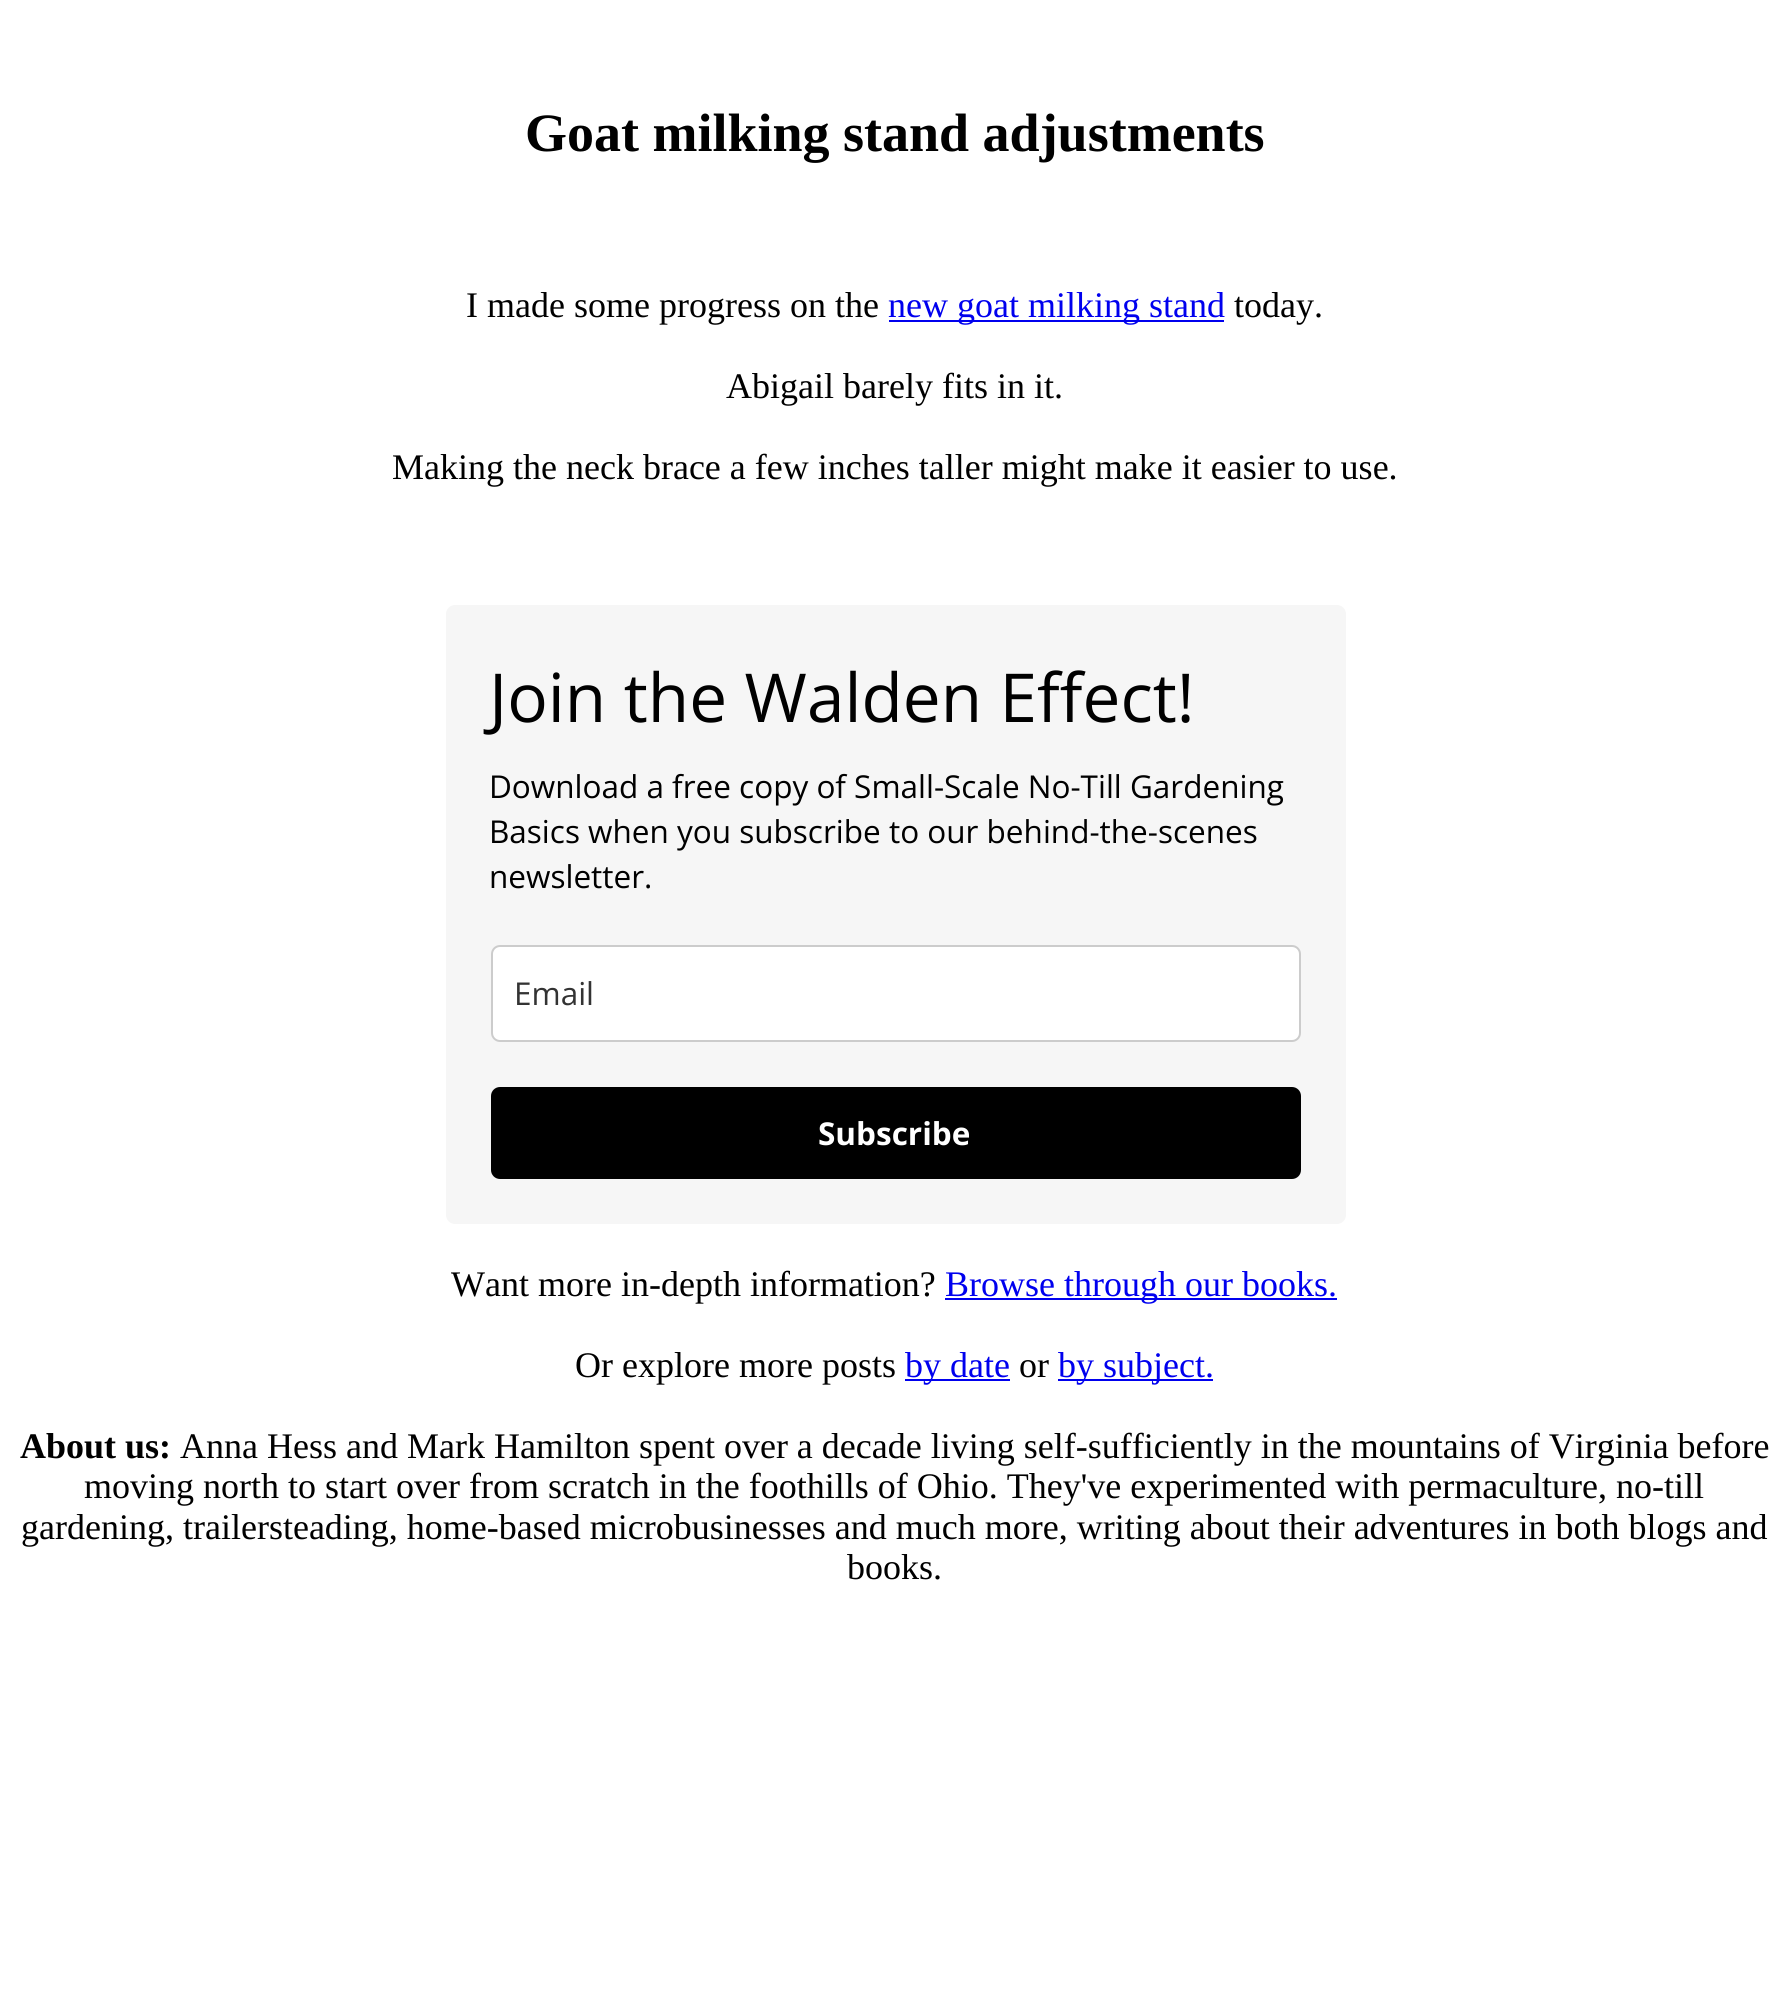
import math
import cairo



def rounded_rect(context, x, y, w, h, r):
    context.new_sub_path()
    for i, (u, v) in enumerate([(x + w - r, y + h - r), (x + r, y + h - r), (x + r, y + r), (x + w - r, y + r)]):
        context.arc(u, v, r, i * math.pi / 2, (i + 1) * math.pi / 2)
    context.close_path()


def draw(context):
    context.set_source_rgb(1, 1, 1)
    context.paint()
    context.set_source_rgb(0, 0, 238 / 255)
    context.rectangle(889, 320, 335, 2)
    context.fill()
    context.set_source_rgb(246 / 255, 246 / 255, 246 / 255)
    rounded_rect(context, 446, 605, 900, 619, 9)
    context.fill()
    context.set_source_rgb(1, 1, 1)
    rounded_rect(context, 492, 946, 808, 95, 8)
    context.fill_preserve()
    context.set_source_rgb(204 / 255, 204 / 255, 204 / 255)
    context.stroke()
    context.set_source_rgb(0, 0, 0)
    rounded_rect(context, 491, 1087, 810, 92, 9)
    context.fill()
    context.set_source_rgb(0, 0, 238 / 255)
    context.rectangle(945, 1298, 392, 2)
    context.fill()
    context.rectangle(905, 1379, 105, 2)
    context.fill()
    context.rectangle(1058, 1379, 155, 2)
    context.fill()
    context.select_font_face("Liberation Serif", cairo.FontSlant.NORMAL, cairo.FontWeight.BOLD)
    context.set_font_size(54)
    context.set_source_rgb(0, 0, 0)
    context.move_to(525, 151)
    context.show_text("Goat milking stand adjustments")
    context.select_font_face("Liberation Serif")
    context.set_font_size(36)
    context.move_to(466, 317)
    context.show_text("I made some progress on the")
    context.set_source_rgb(0, 0, 238 / 255)
    context.move_to(888, 317)
    context.show_text("new goat milking stand")
    context.set_source_rgb(0, 0, 0)
    context.move_to(1234, 317)
    context.show_text("today.")
    context.move_to(726, 398)
    context.show_text("Abigail barely fits in it.")
    context.move_to(392, 479)
    context.show_text("Making the neck brace a few inches taller might make it easier to use.")
    context.select_font_face("Open Sans")
    context.set_font_size(67.5)
    context.move_to(489, 722)
    context.show_text("Join the Walden Effect!")
    context.set_font_size(31.5)
    context.move_to(489, 798)
    context.show_text("Download a free copy of Small-Scale No-Till Gardening")
    context.move_to(489, 843)
    context.show_text("Basics when you subscribe to our behind-the-scenes")
    context.move_to(489, 888)
    context.show_text("newsletter.")
    context.set_source_rgb(51 / 255, 51 / 255, 51 / 255)
    context.move_to(514, 1005)
    context.show_text("Email")
    context.select_font_face("Open Sans", cairo.FontSlant.NORMAL, cairo.FontWeight.BOLD)
    context.set_source_rgb(1, 1, 1)
    context.move_to(818, 1145)
    context.show_text("Subscribe")
    context.select_font_face("Liberation Serif")
    context.set_font_size(36)
    context.set_source_rgb(0, 0, 0)
    context.move_to(451, 1296)
    context.show_text("Want more in-depth information?")
    context.set_source_rgb(0, 0, 238 / 255)
    context.move_to(945, 1296)
    context.show_text("Browse through our books.")
    context.set_source_rgb(0, 0, 0)
    context.move_to(575, 1377)
    context.show_text("Or explore more posts")
    context.set_source_rgb(0, 0, 238 / 255)
    context.move_to(905, 1377)
    context.show_text("by date")
    context.set_source_rgb(0, 0, 0)
    context.move_to(1019, 1377)
    context.show_text("or")
    context.set_source_rgb(0, 0, 238 / 255)
    context.move_to(1058, 1377)
    context.show_text("by subject.")
    context.select_font_face("Liberation Serif", cairo.FontSlant.NORMAL, cairo.FontWeight.BOLD)
    context.set_source_rgb(0, 0, 0)
    context.move_to(20, 1458)
    context.show_text("About us:")
    context.select_font_face("Liberation Serif")
    context.move_to(180, 1458)
    context.show_text("Anna Hess and Mark Hamilton spent over a decade living self-sufficiently in the mountains of Virginia before")
    context.move_to(84, 1498)
    context.show_text("moving north to start over from scratch in the foothills of Ohio. They've experimented with permaculture, no-till")
    context.move_to(21, 1539)
    context.show_text("gardening, trailersteading, home-based microbusinesses and much more, writing about their adventures in both blogs and")
    context.move_to(847, 1579)
    context.show_text("books.")


surface = cairo.ImageSurface(cairo.Format.RGB24, 1787, 1991)
context = cairo.Context(surface)
options = cairo.FontOptions()
options.set_hint_metrics(cairo.HintMetrics.OFF)
options.set_hint_style(cairo.HintStyle.NONE)
context.set_font_options(options)
context.set_miter_limit(4)
draw(context)
surface.write_to_png("out.png")
